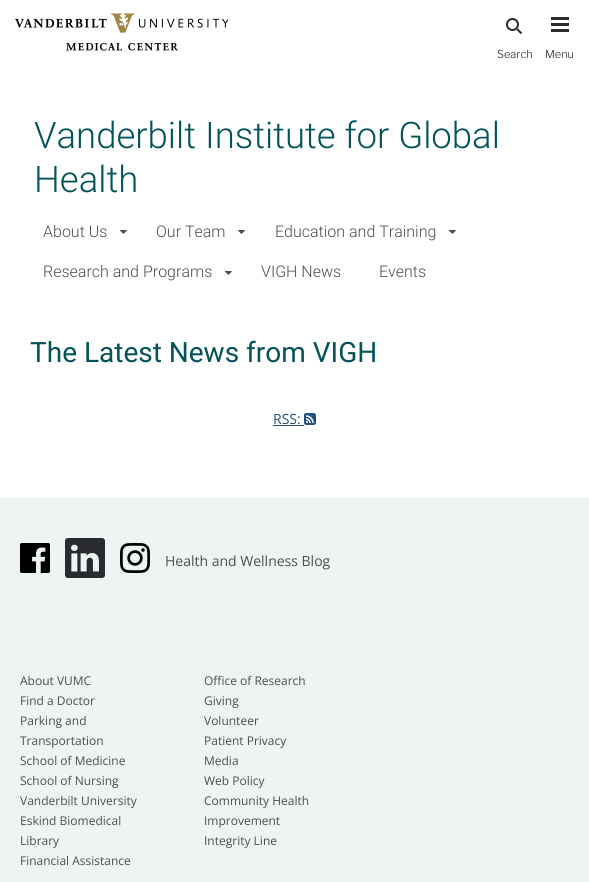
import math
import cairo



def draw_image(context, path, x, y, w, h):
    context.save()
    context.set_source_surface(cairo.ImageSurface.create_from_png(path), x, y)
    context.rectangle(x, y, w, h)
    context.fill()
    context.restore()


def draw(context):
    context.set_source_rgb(1, 1, 1)
    context.paint()
    draw_image(context, "images/1.png", 15, 13, 213, 38)
    context.new_path()
    context.move_to(517, 29)
    context.line_to(521.5, 33.5)
    context.set_source_rgb(42 / 255, 43 / 255, 46 / 255)
    context.stroke()
    context.arc(512.5, 24.5, 5.5, 0, 2 * math.pi)
    context.stroke()
    context.rectangle(551, 17, 18, 3)
    context.fill()
    context.rectangle(551, 23, 18, 3)
    context.fill()
    context.rectangle(551, 29, 18, 3)
    context.fill()
    draw_image(context, "images/2.png", 120, 230, 7, 4)
    draw_image(context, "images/2.png", 238, 230, 7, 4)
    draw_image(context, "images/2.png", 449, 230, 7, 4)
    draw_image(context, "images/2.png", 225, 271, 7, 4)
    context.set_source_rgb(35 / 255, 82 / 255, 124 / 255)
    context.rectangle(273, 425, 31, 1)
    context.fill()
    draw_image(context, "images/3.png", 304, 413, 12, 12)
    context.set_source_rgb(238 / 255, 244 / 255, 243 / 255)
    context.rectangle(0, 498, 589, 384)
    context.fill()
    draw_image(context, "images/4.png", 20, 543, 30, 30)
    draw_image(context, "images/5.png", 65, 538, 40, 40)
    draw_image(context, "images/6.png", 120, 543, 30, 30)
    context.select_font_face("Libre Franklin Light")
    context.set_font_size(11)
    context.set_source_rgb(42 / 255, 43 / 255, 46 / 255)
    context.move_to(497, 58)
    context.show_text("Search")
    context.move_to(545, 58)
    context.show_text("Menu")
    context.select_font_face("Roboto Light")
    context.set_font_size(36.5)
    context.set_source_rgb(2 / 255, 83 / 255, 90 / 255)
    context.move_to(34, 148)
    context.show_text("Vanderbilt Institute for Global")
    context.move_to(34, 192)
    context.show_text("Health")
    context.set_font_size(16)
    context.set_source_rgb(78 / 255, 78 / 255, 78 / 255)
    context.move_to(43, 237)
    context.show_text("About Us")
    context.move_to(156, 237)
    context.show_text("Our Team")
    context.move_to(275, 237)
    context.show_text("Education and Training")
    context.move_to(43, 277)
    context.show_text("Research and Programs")
    context.move_to(261, 277)
    context.show_text("VIGH News")
    context.move_to(379, 277)
    context.show_text("Events")
    context.select_font_face("Roboto")
    context.set_font_size(28)
    context.set_source_rgb(2 / 255, 83 / 255, 90 / 255)
    context.move_to(30, 362)
    context.show_text("The Latest News from VIGH")
    context.select_font_face("Open Sans")
    context.set_font_size(14)
    context.set_source_rgb(35 / 255, 82 / 255, 124 / 255)
    context.move_to(273, 424)
    context.show_text("RSS:")
    context.set_source_rgb(78 / 255, 78 / 255, 78 / 255)
    context.move_to(165, 566)
    context.show_text("Health and Wellness Blog")
    context.set_font_size(12)
    context.move_to(20, 685)
    context.show_text("About VUMC")
    context.move_to(20, 705)
    context.show_text("Find a Doctor")
    context.move_to(20, 725)
    context.show_text("Parking and")
    context.move_to(20, 745)
    context.show_text("Transportation")
    context.move_to(20, 765)
    context.show_text("School of Medicine")
    context.move_to(20, 785)
    context.show_text("School of Nursing")
    context.move_to(20, 805)
    context.show_text("Vanderbilt University")
    context.move_to(20, 825)
    context.show_text("Eskind Biomedical")
    context.move_to(20, 845)
    context.show_text("Library")
    context.move_to(20, 865)
    context.show_text("Financial Assistance")
    context.move_to(204, 685)
    context.show_text("Office of Research")
    context.move_to(204, 705)
    context.show_text("Giving")
    context.move_to(204, 725)
    context.show_text("Volunteer")
    context.move_to(204, 745)
    context.show_text("Patient Privacy")
    context.move_to(204, 765)
    context.show_text("Media")
    context.move_to(204, 785)
    context.show_text("Web Policy")
    context.move_to(204, 805)
    context.show_text("Community Health")
    context.move_to(204, 825)
    context.show_text("Improvement")
    context.move_to(204, 845)
    context.show_text("Integrity Line")


surface = cairo.ImageSurface(cairo.Format.RGB24, 589, 882)
context = cairo.Context(surface)
options = cairo.FontOptions()
options.set_hint_metrics(cairo.HintMetrics.OFF)
options.set_hint_style(cairo.HintStyle.NONE)
context.set_font_options(options)
context.set_miter_limit(4)
draw(context)
surface.write_to_png("out.png")
